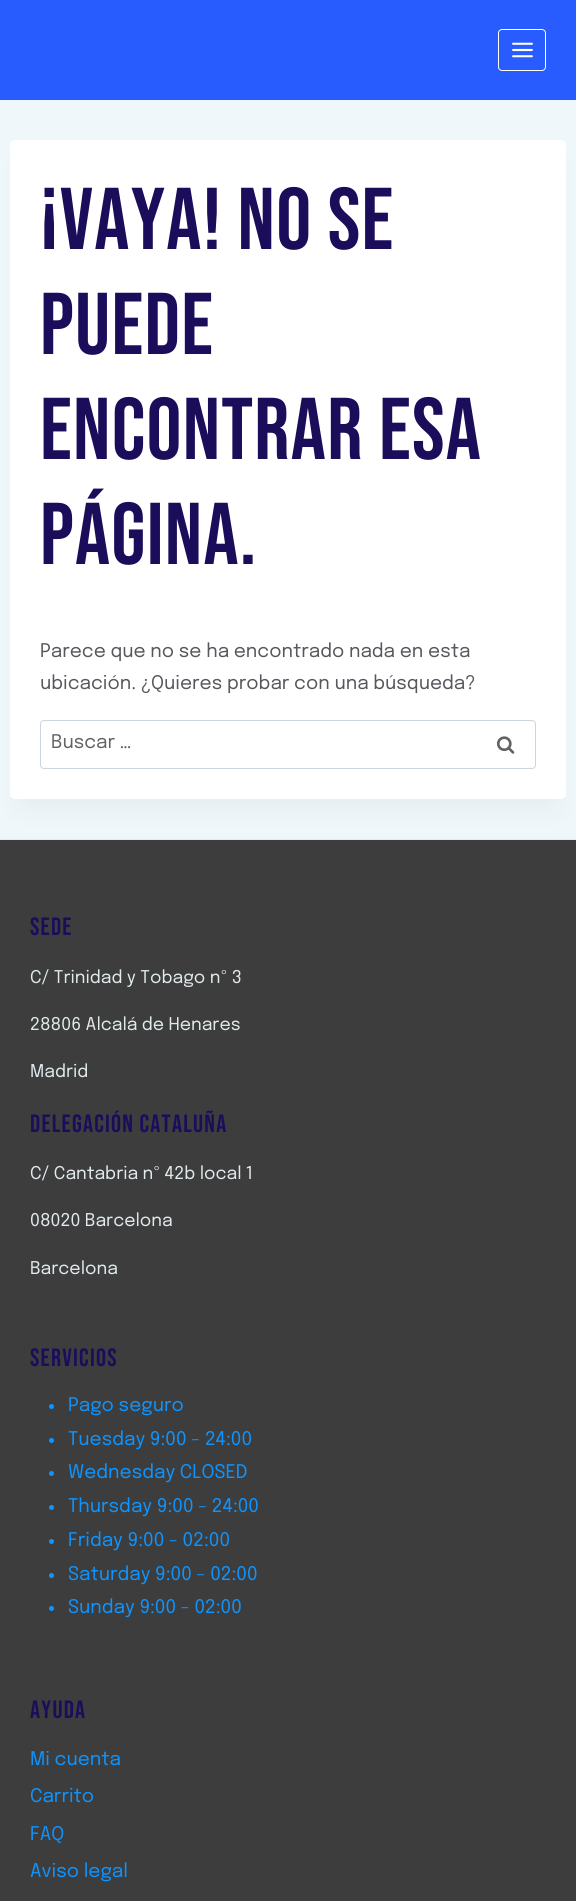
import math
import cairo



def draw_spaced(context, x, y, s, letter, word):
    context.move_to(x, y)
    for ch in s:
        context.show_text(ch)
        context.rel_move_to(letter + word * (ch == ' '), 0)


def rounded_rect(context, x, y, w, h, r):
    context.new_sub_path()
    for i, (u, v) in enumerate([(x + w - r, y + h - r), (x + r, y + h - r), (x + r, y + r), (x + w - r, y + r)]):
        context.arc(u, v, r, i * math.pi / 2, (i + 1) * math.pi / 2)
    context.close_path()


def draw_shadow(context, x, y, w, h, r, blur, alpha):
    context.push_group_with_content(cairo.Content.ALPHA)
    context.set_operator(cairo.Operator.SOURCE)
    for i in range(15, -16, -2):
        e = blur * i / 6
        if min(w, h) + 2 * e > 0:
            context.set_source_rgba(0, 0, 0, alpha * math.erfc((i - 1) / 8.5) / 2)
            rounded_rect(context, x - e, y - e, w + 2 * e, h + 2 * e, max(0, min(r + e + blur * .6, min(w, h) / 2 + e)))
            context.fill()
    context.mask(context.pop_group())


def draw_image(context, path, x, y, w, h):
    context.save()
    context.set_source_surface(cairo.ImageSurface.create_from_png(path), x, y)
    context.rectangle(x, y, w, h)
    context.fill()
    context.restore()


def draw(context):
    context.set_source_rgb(239 / 255, 247 / 255, 251 / 255)
    context.paint()
    context.set_source_rgb(41 / 255, 92 / 255, 1)
    context.rectangle(0, 0, 576, 100)
    context.fill()
    rounded_rect(context, 498.5, 29.5, 47, 41, 3.5)
    context.set_source_rgb(1, 1, 1)
    context.set_line_width(1)
    context.stroke()
    draw_image(context, "images/1.png", 512, 42, 21, 16)
    context.set_source_rgb(61 / 255, 61 / 255, 61 / 255)
    context.rectangle(0, 840, 576, 1061)
    context.fill()
    context.set_source_rgb(225 / 255, 235 / 255, 238 / 255)
    context.rectangle(0, 839, 576, 1)
    context.fill()
    context.set_source_rgb(0, 0, 0)
    draw_shadow(context, 23, 171, 531, 634, 0, 15.5, 0.05)
    context.set_source_rgb(1, 1, 1)
    rounded_rect(context, 10, 140, 556, 659, 5)
    context.fill()
    rounded_rect(context, 40.5, 720.5, 495, 48, 3.5)
    context.set_source_rgb(203 / 255, 213 / 255, 224 / 255)
    context.stroke()
    draw_image(context, "images/2.png", 496, 736, 19, 18)
    context.set_source_rgb(14 / 255, 148 / 255, 1)
    context.arc(51.5, 1406.5, 2.5, 0, 2 * math.pi)
    context.fill()
    context.arc(51.5, 1440.5, 2.5, 0, 2 * math.pi)
    context.fill()
    context.arc(51.5, 1473.5, 2.5, 0, 2 * math.pi)
    context.fill()
    context.arc(51.5, 1507.5, 2.5, 0, 2 * math.pi)
    context.fill()
    context.arc(51.5, 1541.5, 2.5, 0, 2 * math.pi)
    context.fill()
    context.arc(51.5, 1575.5, 2.5, 0, 2 * math.pi)
    context.fill()
    context.arc(51.5, 1608.5, 2.5, 0, 2 * math.pi)
    context.fill()
    context.select_font_face("Bebas Neue")
    context.set_font_size(87.5)
    context.set_source_rgb(28 / 255, 13 / 255, 90 / 255)
    draw_spaced(context, 40, 249, "¡VAYA! NO SE", 1.25, 0)
    draw_spaced(context, 40, 354, "PUEDE", 1.25, 0)
    draw_spaced(context, 40, 459, "ENCONTRAR ESA", 1.25, 0)
    draw_spaced(context, 40, 564, "PÁGINA.", 1.25, 0)
    context.select_font_face("Epilogue")
    context.set_font_size(18.75)
    context.set_source_rgb(87 / 255, 87 / 255, 93 / 255)
    context.move_to(40, 657)
    context.show_text("Parece que no se ha encontrado nada en esta")
    context.move_to(40, 689)
    context.show_text("ubicación. ¿Quieres probar con una búsqueda?")
    context.set_source_rgb(99 / 255, 99 / 255, 99 / 255)
    context.move_to(51, 748)
    context.show_text("Buscar …")
    context.select_font_face("Bebas Neue")
    context.set_font_size(25)
    context.set_source_rgb(28 / 255, 13 / 255, 90 / 255)
    draw_spaced(context, 30, 935, "SEDE", 1.25, 0)
    context.select_font_face("Epilogue")
    context.set_font_size(17.5)
    context.set_source_rgb(225 / 255, 235 / 255, 238 / 255)
    context.move_to(30, 983)
    context.show_text("C/ Trinidad y Tobago nº 3")
    context.move_to(30, 1030)
    context.show_text("28806 Alcalá de Henares")
    context.move_to(30, 1077)
    context.show_text("Madrid")
    context.select_font_face("Bebas Neue")
    context.set_font_size(25)
    context.set_source_rgb(28 / 255, 13 / 255, 90 / 255)
    draw_spaced(context, 30, 1132, "DELEGACIÓN CATALUÑA", 1.25, 0)
    context.select_font_face("Epilogue")
    context.set_font_size(17.5)
    context.set_source_rgb(225 / 255, 235 / 255, 238 / 255)
    context.move_to(30, 1179)
    context.show_text("C/ Cantabria nº 42b local 1")
    context.move_to(30, 1226)
    context.show_text("08020 Barcelona")
    context.move_to(30, 1274)
    context.show_text("Barcelona")
    context.select_font_face("Bebas Neue")
    context.set_font_size(25)
    context.set_source_rgb(28 / 255, 13 / 255, 90 / 255)
    draw_spaced(context, 30, 1366, "SERVICIOS", 1.25, 0)
    context.select_font_face("Epilogue")
    context.set_font_size(18.75)
    context.set_source_rgb(14 / 255, 148 / 255, 1)
    context.move_to(68, 1411)
    context.show_text("Pago seguro")
    context.move_to(68, 1445)
    context.show_text("Tuesday 9:00 - 24:00")
    context.move_to(68, 1478)
    context.show_text("Wednesday CLOSED")
    context.move_to(68, 1512)
    context.show_text("Thursday 9:00 - 24:00")
    context.move_to(68, 1546)
    context.show_text("Friday 9:00 - 02:00")
    context.move_to(68, 1580)
    context.show_text("Saturday 9:00 - 02:00")
    context.move_to(68, 1613)
    context.show_text("Sunday 9:00 - 02:00")
    context.select_font_face("Bebas Neue")
    context.set_font_size(25)
    context.set_source_rgb(28 / 255, 13 / 255, 90 / 255)
    draw_spaced(context, 30, 1718, "AYUDA", 1.25, 0)
    context.select_font_face("Epilogue")
    context.set_font_size(18.75)
    context.set_source_rgb(14 / 255, 148 / 255, 1)
    context.move_to(30, 1765)
    context.show_text("Mi cuenta")
    context.move_to(30, 1802)
    context.show_text("Carrito")
    context.move_to(30, 1840)
    context.show_text("FAQ")
    context.move_to(30, 1877)
    context.show_text("Aviso legal")


surface = cairo.ImageSurface(cairo.Format.RGB24, 576, 1901)
context = cairo.Context(surface)
options = cairo.FontOptions()
options.set_hint_metrics(cairo.HintMetrics.OFF)
options.set_hint_style(cairo.HintStyle.NONE)
context.set_font_options(options)
context.set_miter_limit(4)
draw(context)
surface.write_to_png("out.png")
